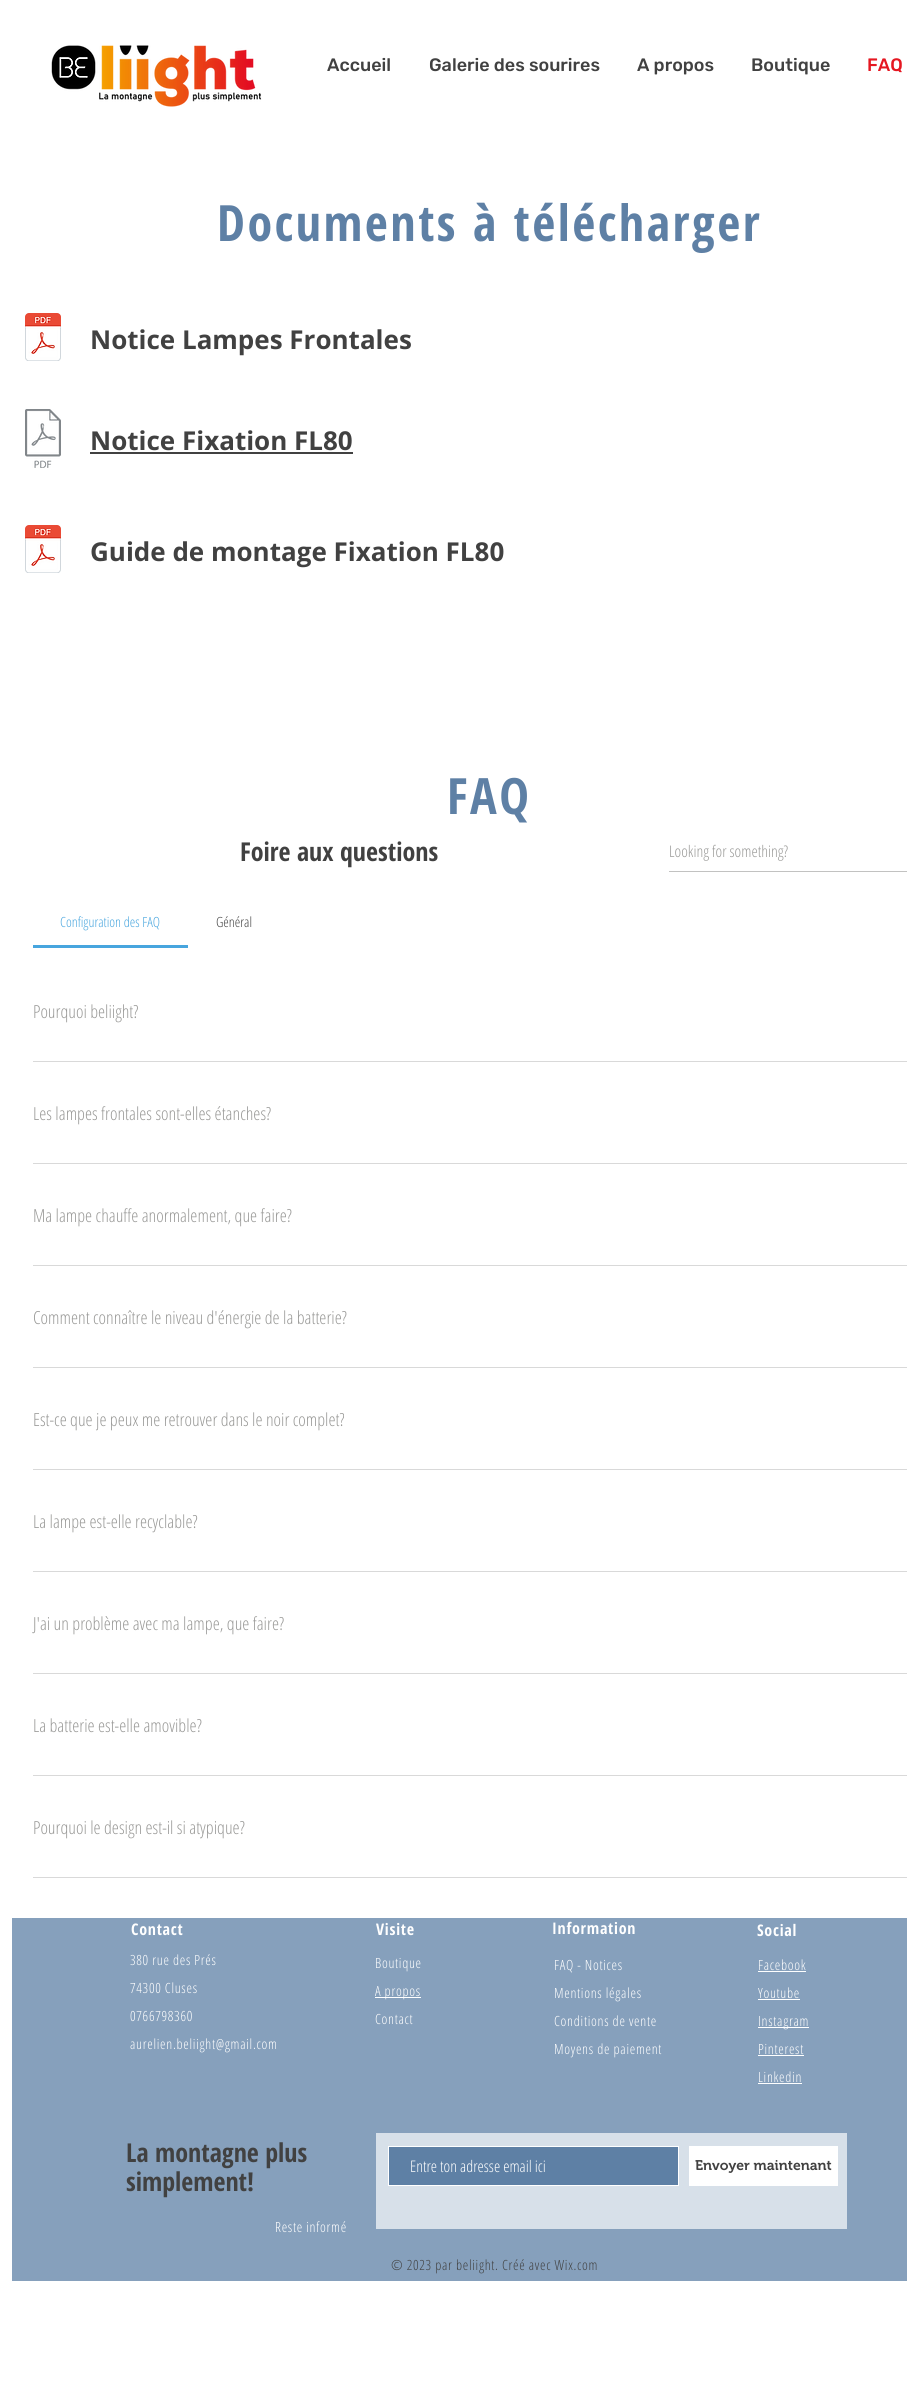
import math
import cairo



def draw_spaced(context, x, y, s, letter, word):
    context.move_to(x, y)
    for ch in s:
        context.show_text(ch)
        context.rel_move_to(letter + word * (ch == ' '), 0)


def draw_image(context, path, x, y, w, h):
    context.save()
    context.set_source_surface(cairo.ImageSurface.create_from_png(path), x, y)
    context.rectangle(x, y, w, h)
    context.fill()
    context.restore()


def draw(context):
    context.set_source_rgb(1, 1, 1)
    context.paint()
    draw_image(context, "images/1.png", 51, 45, 211, 62)
    draw_image(context, "images/2.png", 25, 313, 36, 48)
    draw_image(context, "images/3.png", 25, 409, 36, 59)
    context.set_source_rgb(65 / 255, 65 / 255, 65 / 255)
    context.rectangle(90, 452, 263, 2)
    context.fill()
    draw_image(context, "images/2.png", 25, 525, 36, 48)
    context.set_source_rgb(194 / 255, 194 / 255, 193 / 255)
    context.rectangle(669, 871, 238, 1)
    context.fill()
    context.set_source_rgb(71 / 255, 165 / 255, 222 / 255)
    context.rectangle(33, 945, 155, 3)
    context.fill()
    context.set_source_rgb(217 / 255, 217 / 255, 217 / 255)
    context.rectangle(33, 1061, 874, 1)
    context.fill()
    context.rectangle(33, 1163, 874, 1)
    context.fill()
    context.rectangle(33, 1265, 874, 1)
    context.fill()
    context.rectangle(33, 1367, 874, 1)
    context.fill()
    context.rectangle(33, 1469, 874, 1)
    context.fill()
    context.rectangle(33, 1571, 874, 1)
    context.fill()
    context.rectangle(33, 1673, 874, 1)
    context.fill()
    context.rectangle(33, 1775, 874, 1)
    context.fill()
    context.rectangle(33, 1877, 874, 1)
    context.fill()
    context.set_source_rgb(134 / 255, 160 / 255, 188 / 255)
    context.rectangle(12, 1918, 895, 363)
    context.fill()
    context.set_source_rgb(1, 1, 1)
    context.rectangle(375, 1997, 46, 1)
    context.fill()
    context.rectangle(758, 1971, 48, 1)
    context.fill()
    context.rectangle(758, 1999, 42, 1)
    context.fill()
    context.rectangle(758, 2027, 51, 1)
    context.fill()
    context.rectangle(758, 2055, 46, 1)
    context.fill()
    context.rectangle(758, 2083, 44, 1)
    context.fill()
    context.set_source_rgb(215 / 255, 224 / 255, 233 / 255)
    context.rectangle(376, 2133, 471, 96)
    context.fill()
    context.set_source_rgb(94 / 255, 128 / 255, 165 / 255)
    context.rectangle(388.5, 2146.5, 290, 39)
    context.fill_preserve()
    context.set_source_rgb(1, 1, 1)
    context.set_line_width(1)
    context.stroke()
    context.rectangle(689, 2146, 149, 40)
    context.fill()
    context.select_font_face("Rubik Medium")
    context.set_font_size(18)
    context.set_source_rgb(65 / 255, 65 / 255, 65 / 255)
    context.move_to(327, 71)
    context.show_text("Accueil")
    context.move_to(429, 71)
    context.show_text("Galerie des sourires")
    context.move_to(637, 71)
    context.show_text("A propos")
    context.move_to(751, 71)
    context.show_text("Boutique")
    context.set_source_rgb(229 / 255, 23 / 255, 33 / 255)
    context.move_to(867, 71)
    context.show_text("FAQ")
    context.select_font_face("Open Sans Condensed", cairo.FontSlant.NORMAL, cairo.FontWeight.BOLD)
    context.set_font_size(50)
    context.set_source_rgb(94 / 255, 128 / 255, 165 / 255)
    draw_spaced(context, 217, 241, "Documents à télécharger", 2.5, 0)
    context.select_font_face("Open Sans", cairo.FontSlant.NORMAL, cairo.FontWeight.BOLD)
    context.set_font_size(26)
    context.set_source_rgb(65 / 255, 65 / 255, 65 / 255)
    context.move_to(90, 349)
    context.show_text("Notice Lampes Frontales")
    context.move_to(90, 450)
    context.show_text("Notice Fixation FL80")
    context.move_to(90, 561)
    context.show_text("Guide de montage Fixation FL80")
    context.select_font_face("Open Sans Condensed", cairo.FontSlant.NORMAL, cairo.FontWeight.BOLD)
    context.set_font_size(50)
    context.set_source_rgb(94 / 255, 128 / 255, 165 / 255)
    draw_spaced(context, 447, 814, "FAQ", 2.5, 0)
    context.set_font_size(26)
    context.set_source_rgb(65 / 255, 65 / 255, 65 / 255)
    context.move_to(240, 861)
    context.show_text("Foire aux questions")
    context.select_font_face("Open Sans Condensed Light")
    context.set_font_size(16)
    context.set_source_rgb(153 / 255, 153 / 255, 151 / 255)
    context.move_to(669, 857)
    context.show_text("Looking for something?")
    context.set_font_size(14)
    context.set_source_rgb(71 / 255, 165 / 255, 222 / 255)
    context.move_to(60, 927)
    context.show_text("Configuration des FAQ")
    context.set_source_rgb(65 / 255, 65 / 255, 65 / 255)
    context.move_to(216, 927)
    context.show_text("Général")
    context.set_font_size(18)
    context.set_source_rgb(153 / 255, 153 / 255, 151 / 255)
    context.move_to(33, 1018)
    context.show_text("Pourquoi beliight?")
    context.move_to(33, 1120)
    context.show_text("Les lampes frontales sont-elles étanches?")
    context.move_to(33, 1222)
    context.show_text("Ma lampe chauffe anormalement, que faire?")
    context.move_to(33, 1324)
    context.show_text("Comment connaître le niveau d'énergie de la batterie?")
    context.move_to(33, 1426)
    context.show_text("Est-ce que je peux me retrouver dans le noir complet?")
    context.move_to(33, 1528)
    context.show_text("La lampe est-elle recyclable?")
    context.move_to(33, 1630)
    context.show_text("J'ai un problème avec ma lampe, que faire?")
    context.move_to(33, 1732)
    context.show_text("La batterie est-elle amovible?")
    context.move_to(33, 1834)
    context.show_text("Pourquoi le design est-il si atypique?")
    context.select_font_face("Open Sans Condensed", cairo.FontSlant.NORMAL, cairo.FontWeight.BOLD)
    context.set_font_size(16)
    context.set_source_rgb(1, 1, 1)
    draw_spaced(context, 131, 1935, "Contact", 0.75, 0)
    draw_spaced(context, 376, 1935, "Visite", 0.75, 0)
    draw_spaced(context, 552, 1934, "Information", 0.75, 0)
    draw_spaced(context, 757, 1936, "Social", 0.75, 0)
    context.select_font_face("Open Sans Condensed Light")
    context.set_font_size(14)
    draw_spaced(context, 130, 1965, "380 rue des Prés", 0.7, 0)
    draw_spaced(context, 130, 1993, "74300 Cluses", 0.7, 0)
    draw_spaced(context, 130, 2021, "0766798360", 0.7, 0)
    draw_spaced(context, 130, 2049, "aurelien.beliight@gmail.com", 0.7, 0)
    draw_spaced(context, 375, 1968, "Boutique", 0.7, 0)
    draw_spaced(context, 375, 1996, "A propos", 0.7, 0)
    draw_spaced(context, 375, 2024, "Contact", 0.7, 0)
    draw_spaced(context, 554, 1970, "FAQ - Notices", 0.7, 0)
    draw_spaced(context, 554, 1998, "Mentions légales", 0.7, 0)
    draw_spaced(context, 554, 2026, "Conditions de vente", 0.7, 0)
    draw_spaced(context, 554, 2054, "Moyens de paiement", 0.7, 0)
    draw_spaced(context, 758, 1970, "Facebook", 0.7, 0)
    draw_spaced(context, 758, 1998, "Youtube", 0.7, 0)
    draw_spaced(context, 758, 2026, "Instagram", 0.7, 0)
    draw_spaced(context, 758, 2054, "Pinterest", 0.7, 0)
    draw_spaced(context, 758, 2082, "Linkedin", 0.7, 0)
    context.select_font_face("Open Sans Condensed", cairo.FontSlant.NORMAL, cairo.FontWeight.BOLD)
    context.set_font_size(26)
    context.set_source_rgb(65 / 255, 65 / 255, 65 / 255)
    context.move_to(126, 2162)
    context.show_text("La montagne plus")
    context.move_to(126, 2191)
    context.show_text("simplement!")
    context.select_font_face("Open Sans Condensed Light")
    context.set_font_size(16)
    context.set_source_rgb(1, 1, 1)
    context.move_to(410, 2172)
    context.show_text("Entre ton adresse email ici")
    context.select_font_face("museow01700 SemiBold")
    context.set_font_size(14)
    context.set_source_rgb(65 / 255, 65 / 255, 65 / 255)
    context.move_to(695, 2170)
    context.show_text("Envoyer maintenant")
    context.select_font_face("Open Sans Condensed Light")
    context.set_source_rgb(1, 1, 1)
    draw_spaced(context, 275, 2232, "Reste informé", 0.7, 0)
    context.set_source_rgb(65 / 255, 65 / 255, 65 / 255)
    draw_spaced(context, 391, 2270, "© 2023 par beliight. Créé avec Wix.com", 0.7, 0)


surface = cairo.ImageSurface(cairo.Format.RGB24, 907, 2406)
context = cairo.Context(surface)
options = cairo.FontOptions()
options.set_hint_metrics(cairo.HintMetrics.OFF)
options.set_hint_style(cairo.HintStyle.NONE)
context.set_font_options(options)
context.set_miter_limit(4)
draw(context)
surface.write_to_png("out.png")
